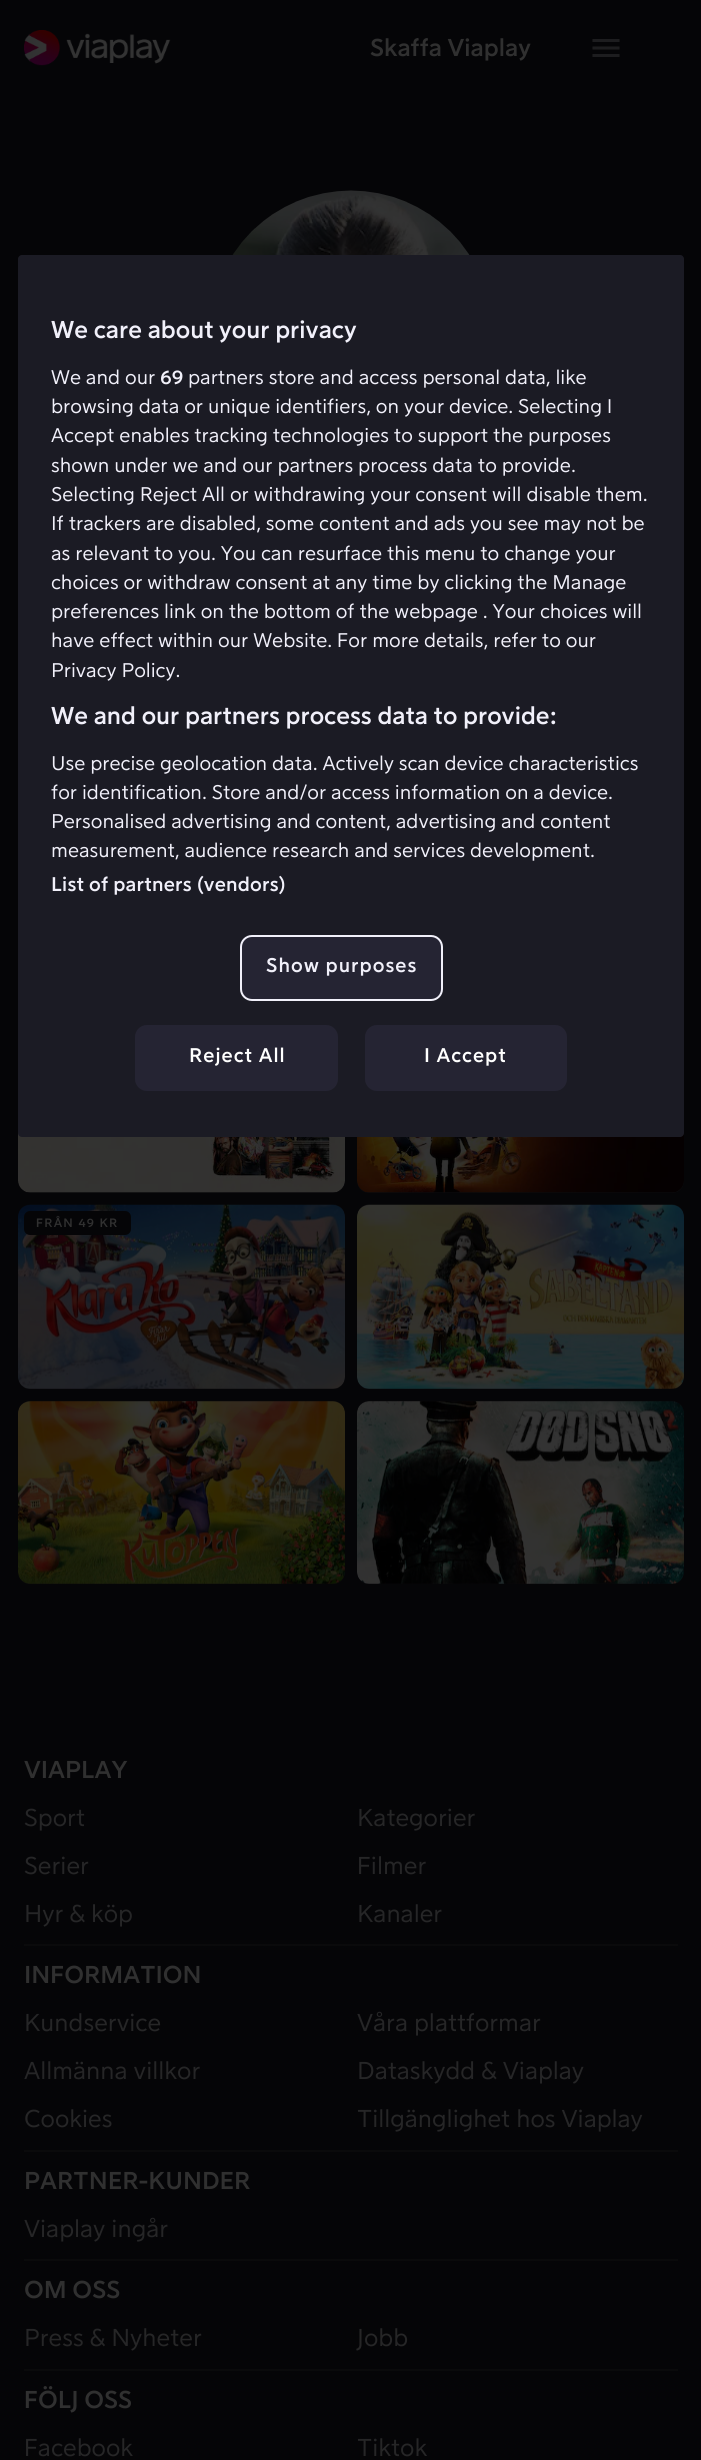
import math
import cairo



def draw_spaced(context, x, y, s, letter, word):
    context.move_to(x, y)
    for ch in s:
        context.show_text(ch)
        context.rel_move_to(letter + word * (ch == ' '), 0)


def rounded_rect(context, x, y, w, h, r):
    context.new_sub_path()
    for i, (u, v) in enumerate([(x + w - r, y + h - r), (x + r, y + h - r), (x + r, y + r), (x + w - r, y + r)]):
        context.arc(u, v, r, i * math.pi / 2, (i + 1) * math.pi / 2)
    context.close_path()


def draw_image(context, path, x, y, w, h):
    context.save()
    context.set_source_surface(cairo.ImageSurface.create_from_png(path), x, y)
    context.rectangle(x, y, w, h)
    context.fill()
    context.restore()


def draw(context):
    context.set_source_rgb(5 / 255, 5 / 255, 7 / 255)
    context.paint()
    draw_image(context, "images/1.png", 24, 30, 147, 36)
    draw_image(context, "images/2.png", 592, 39, 28, 18)
    draw_image(context, "images/3.png", 232, 190, 238, 65)
    context.set_source_rgb(10 / 255, 9 / 255, 12 / 255)
    rounded_rect(context, 18, 1008, 327, 185, 12)
    context.fill()
    draw_image(context, "images/4.png", 18, 1133, 327, 60)
    rounded_rect(context, 357, 1008, 327, 185, 12)
    context.fill()
    draw_image(context, "images/5.png", 357, 1133, 327, 60)
    rounded_rect(context, 18, 1205, 327, 184, 12)
    context.fill()
    draw_image(context, "images/6.png", 18, 1204, 327, 185)
    context.set_source_rgb(5 / 255, 5 / 255, 7 / 255)
    rounded_rect(context, 24, 1211, 107, 24, 6)
    context.fill()
    context.set_source_rgb(10 / 255, 9 / 255, 12 / 255)
    rounded_rect(context, 357, 1205, 327, 184, 12)
    context.fill()
    draw_image(context, "images/7.png", 357, 1204, 327, 185)
    rounded_rect(context, 18, 1401, 327, 183, 12)
    context.fill()
    draw_image(context, "images/8.png", 18, 1401, 327, 183)
    rounded_rect(context, 357, 1401, 327, 183, 12)
    context.fill()
    draw_image(context, "images/9.png", 357, 1401, 327, 183)
    context.set_source_rgb(10 / 255, 10 / 255, 11 / 255)
    context.rectangle(24, 1944, 654, 2)
    context.fill()
    context.rectangle(24, 2150, 654, 2)
    context.fill()
    context.rectangle(24, 2259, 654, 2)
    context.fill()
    context.rectangle(24, 2369, 654, 2)
    context.fill()
    context.set_source_rgb(27 / 255, 27 / 255, 36 / 255)
    rounded_rect(context, 18, 255, 666, 882, 4)
    context.fill()
    context.set_source_rgb(37 / 255, 36 / 255, 51 / 255)
    rounded_rect(context, 241, 936, 201, 64, 11)
    context.fill_preserve()
    context.set_source_rgb(241 / 255, 240 / 255, 250 / 255)
    context.stroke()
    context.set_source_rgb(37 / 255, 36 / 255, 51 / 255)
    rounded_rect(context, 136, 1026, 201, 64, 11)
    context.fill_preserve()
    context.stroke()
    rounded_rect(context, 366, 1026, 200, 64, 11)
    context.fill_preserve()
    context.stroke()
    context.select_font_face("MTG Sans", cairo.FontSlant.NORMAL, cairo.FontWeight.BOLD)
    context.set_font_size(24)
    context.set_source_rgb(48 / 255, 48 / 255, 48 / 255)
    context.move_to(370, 56)
    context.show_text("Skaffa Viaplay")
    context.set_font_size(12)
    draw_spaced(context, 36, 1227, "FRÅN 49 KR", 1.25, 0)
    context.set_font_size(24)
    context.move_to(24, 1778)
    context.show_text("VIAPLAY")
    context.select_font_face("MTG Sans")
    context.set_source_rgb(38 / 255, 38 / 255, 39 / 255)
    context.move_to(24, 1826)
    context.show_text("Sport")
    context.move_to(357, 1826)
    context.show_text("Kategorier")
    context.move_to(24, 1874)
    context.show_text("Serier")
    context.move_to(357, 1874)
    context.show_text("Filmer")
    context.move_to(24, 1922)
    context.show_text("Hyr & köp")
    context.move_to(357, 1922)
    context.show_text("Kanaler")
    context.select_font_face("MTG Sans", cairo.FontSlant.NORMAL, cairo.FontWeight.BOLD)
    context.set_source_rgb(48 / 255, 48 / 255, 48 / 255)
    context.move_to(24, 1983)
    context.show_text("INFORMATION")
    context.select_font_face("MTG Sans")
    context.set_source_rgb(38 / 255, 38 / 255, 39 / 255)
    context.move_to(24, 2031)
    context.show_text("Kundservice")
    context.move_to(357, 2031)
    context.show_text("Våra plattformar")
    context.move_to(24, 2079)
    context.show_text("Allmänna villkor")
    context.move_to(357, 2079)
    context.show_text("Dataskydd & Viaplay")
    context.move_to(24, 2127)
    context.show_text("Cookies")
    context.move_to(357, 2127)
    context.show_text("Tillgänglighet hos Viaplay")
    context.select_font_face("MTG Sans", cairo.FontSlant.NORMAL, cairo.FontWeight.BOLD)
    context.set_source_rgb(48 / 255, 48 / 255, 48 / 255)
    context.move_to(24, 2189)
    context.show_text("PARTNER-KUNDER")
    context.select_font_face("MTG Sans")
    context.set_source_rgb(38 / 255, 38 / 255, 39 / 255)
    context.move_to(24, 2237)
    context.show_text("Viaplay ingår")
    context.select_font_face("MTG Sans", cairo.FontSlant.NORMAL, cairo.FontWeight.BOLD)
    context.set_source_rgb(48 / 255, 48 / 255, 48 / 255)
    context.move_to(24, 2298)
    context.show_text("OM OSS")
    context.select_font_face("MTG Sans")
    context.set_source_rgb(38 / 255, 38 / 255, 39 / 255)
    context.move_to(24, 2346)
    context.show_text("Press & Nyheter")
    context.move_to(357, 2346)
    context.show_text("Jobb")
    context.select_font_face("MTG Sans", cairo.FontSlant.NORMAL, cairo.FontWeight.BOLD)
    context.set_source_rgb(48 / 255, 48 / 255, 48 / 255)
    context.move_to(24, 2408)
    context.show_text("FÖLJ OSS")
    context.select_font_face("MTG Sans")
    context.set_source_rgb(38 / 255, 38 / 255, 39 / 255)
    context.move_to(24, 2456)
    context.show_text("Facebook")
    context.move_to(357, 2456)
    context.show_text("Tiktok")
    context.select_font_face("MTG Sans", cairo.FontSlant.NORMAL, cairo.FontWeight.BOLD)
    context.set_source_rgb(241 / 255, 240 / 255, 250 / 255)
    context.move_to(51, 338)
    context.show_text("We care about your privacy")
    context.select_font_face("MTG Sans")
    context.set_font_size(19.5)
    context.move_to(51, 384)
    context.show_text("We and our")
    context.select_font_face("MTG Sans", cairo.FontSlant.NORMAL, cairo.FontWeight.BOLD)
    context.move_to(160, 384)
    context.show_text("69")
    context.select_font_face("MTG Sans")
    context.move_to(188, 384)
    context.show_text("partners store and access personal data, like")
    context.move_to(51, 413)
    context.show_text("browsing data or unique identifiers, on your device. Selecting I")
    context.move_to(51, 442)
    context.show_text("Accept enables tracking technologies to support the purposes")
    context.move_to(51, 472)
    context.show_text("shown under we and our partners process data to provide.")
    context.move_to(51, 501)
    context.show_text("Selecting Reject All or withdrawing your consent will disable them.")
    context.move_to(51, 530)
    context.show_text("If trackers are disabled, some content and ads you see may not be")
    context.move_to(51, 560)
    context.show_text("as relevant to you. You can resurface this menu to change your")
    context.move_to(51, 589)
    context.show_text("choices or withdraw consent at any time by clicking the Manage")
    context.move_to(51, 618)
    context.show_text("preferences link on the bottom of the webpage . Your choices will")
    context.move_to(51, 647)
    context.show_text("have effect within our Website. For more details, refer to our")
    context.move_to(51, 677)
    context.show_text("Privacy Policy.")
    context.select_font_face("MTG Sans", cairo.FontSlant.NORMAL, cairo.FontWeight.BOLD)
    context.set_font_size(24)
    context.move_to(51, 724)
    context.show_text("We and our partners process data to provide:")
    context.select_font_face("MTG Sans")
    context.set_font_size(19.5)
    context.move_to(51, 770)
    context.show_text("Use precise geolocation data. Actively scan device characteristics")
    context.move_to(51, 799)
    context.show_text("for identification. Store and/or access information on a device.")
    context.move_to(51, 828)
    context.show_text("Personalised advertising and content, advertising and content")
    context.move_to(51, 857)
    context.show_text("measurement, audience research and services development.")
    context.select_font_face("MTG Sans", cairo.FontSlant.NORMAL, cairo.FontWeight.BOLD)
    draw_spaced(context, 51, 891, "List of partners (vendors)", 0.2, 0)
    draw_spaced(context, 266, 972, "Show purposes", 1, 0)
    context.set_source_rgb(1, 1, 1)
    draw_spaced(context, 189, 1062, "Reject All", 1, 0)
    draw_spaced(context, 424, 1062, "I Accept", 1, 0)


surface = cairo.ImageSurface(cairo.Format.RGB24, 701, 2460)
context = cairo.Context(surface)
options = cairo.FontOptions()
options.set_hint_metrics(cairo.HintMetrics.OFF)
options.set_hint_style(cairo.HintStyle.NONE)
context.set_font_options(options)
context.set_miter_limit(4)
draw(context)
surface.write_to_png("out.png")
